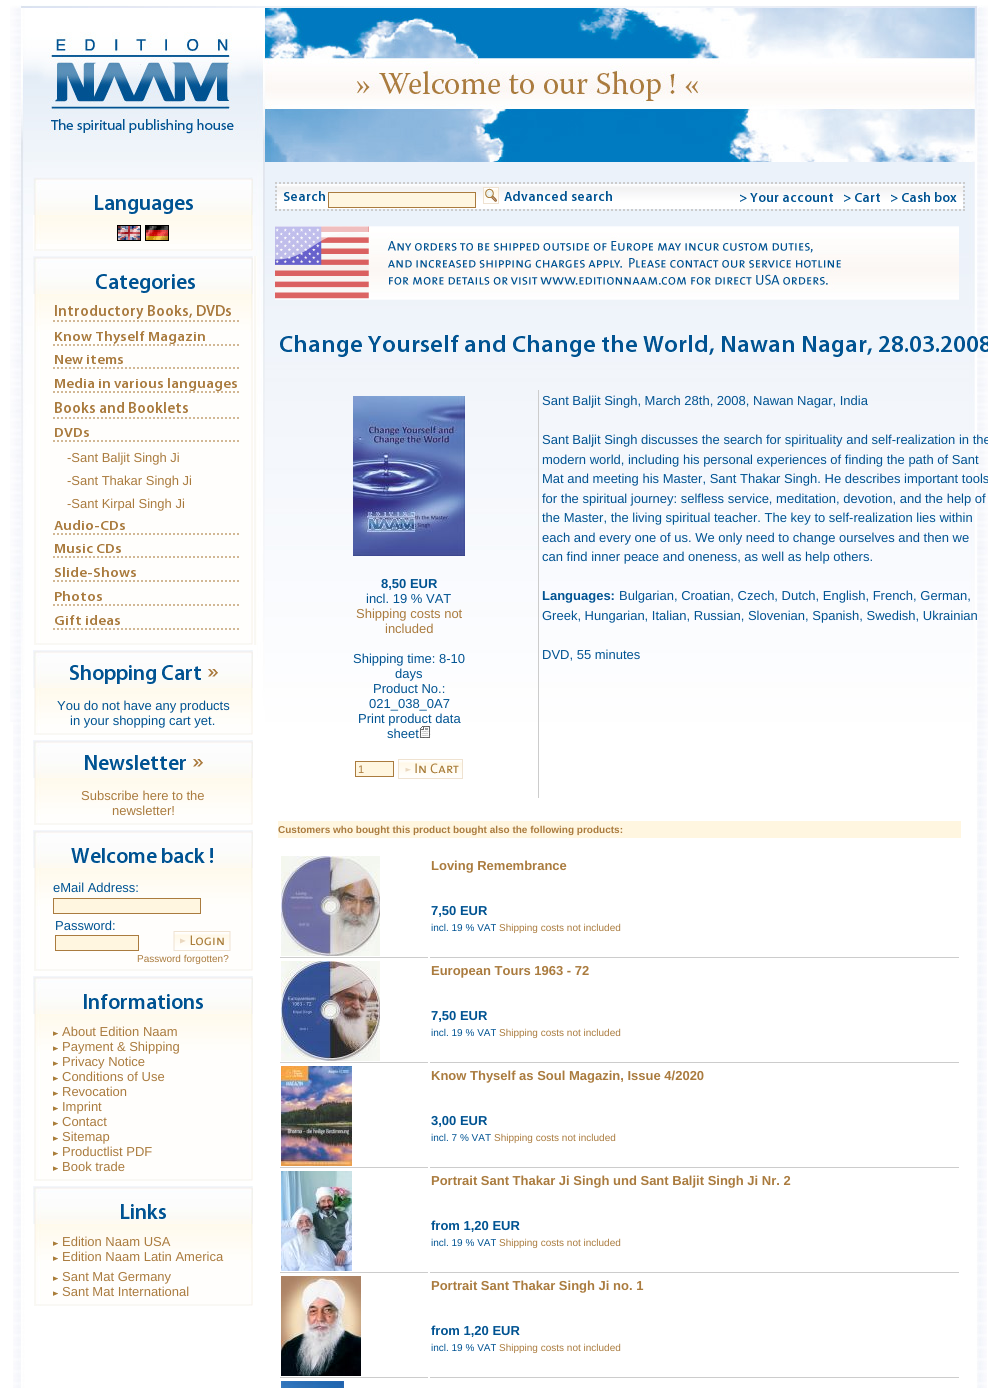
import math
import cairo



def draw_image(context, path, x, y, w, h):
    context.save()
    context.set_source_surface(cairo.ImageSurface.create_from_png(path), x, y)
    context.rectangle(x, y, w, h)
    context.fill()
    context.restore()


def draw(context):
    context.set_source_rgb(1, 1, 1)
    context.paint()
    draw_image(context, "images/1.png", 10, 5, 978, 157)
    draw_image(context, "images/2.png", 13, 722, 974, 666)
    draw_image(context, "images/3.png", 10, 162, 255, 560)
    draw_image(context, "images/4.png", 33, 215, 220, 36)
    draw_image(context, "images/5.png", 33, 177, 220, 38)
    draw_image(context, "images/6.png", 95, 195, 98, 19)
    draw_image(context, "images/7.png", 35, 215, 217, 29)
    draw_image(context, "images/8.png", 117, 225, 24, 16)
    draw_image(context, "images/9.png", 145, 225, 24, 16)
    draw_image(context, "images/10.png", 36, 249, 217, 2)
    draw_image(context, "images/11.png", 33, 256, 224, 389)
    draw_image(context, "images/5.png", 33, 256, 220, 38)
    draw_image(context, "images/12.png", 96, 274, 99, 19)
    draw_image(context, "images/13.png", 35, 294, 217, 38)
    context.new_path()
    context.move_to(53, 321)
    context.line_to(239, 321)
    context.set_source_rgb(210 / 255, 184 / 255, 149 / 255)
    context.set_dash([2, 2])
    context.stroke()
    draw_image(context, "images/14.png", 55, 305, 176, 14)
    context.new_path()
    context.move_to(53, 345)
    context.line_to(239, 345)
    context.stroke()
    draw_image(context, "images/15.png", 55, 331, 150, 13)
    context.new_path()
    context.move_to(53, 368)
    context.line_to(239, 368)
    context.stroke()
    draw_image(context, "images/16.png", 55, 355, 68, 9)
    context.new_path()
    context.move_to(53, 392)
    context.line_to(239, 392)
    context.stroke()
    draw_image(context, "images/17.png", 55, 378, 182, 13)
    context.new_path()
    context.move_to(53, 418)
    context.line_to(239, 418)
    context.stroke()
    draw_image(context, "images/18.png", 55, 402, 133, 11)
    context.new_path()
    context.move_to(53, 441)
    context.line_to(239, 441)
    context.stroke()
    draw_image(context, "images/19.png", 55, 428, 34, 9)
    context.new_path()
    context.move_to(53, 534)
    context.line_to(239, 534)
    context.stroke()
    draw_image(context, "images/20.png", 54, 520, 71, 10)
    context.new_path()
    context.move_to(53, 557)
    context.line_to(239, 557)
    context.stroke()
    draw_image(context, "images/21.png", 55, 544, 66, 9)
    context.new_path()
    context.move_to(53, 581)
    context.line_to(239, 581)
    context.stroke()
    draw_image(context, "images/22.png", 55, 567, 81, 10)
    context.new_path()
    context.move_to(53, 605)
    context.line_to(239, 605)
    context.stroke()
    draw_image(context, "images/23.png", 55, 591, 47, 10)
    context.new_path()
    context.move_to(53, 629)
    context.line_to(239, 629)
    context.stroke()
    draw_image(context, "images/24.png", 55, 615, 65, 10)
    draw_image(context, "images/10.png", 36, 643, 217, 2)
    draw_image(context, "images/25.png", 34, 688, 219, 47)
    draw_image(context, "images/5.png", 33, 650, 220, 38)
    draw_image(context, "images/26.png", 70, 665, 131, 19)
    draw_image(context, "images/27.png", 208, 669, 10, 8)
    draw_image(context, "images/13.png", 35, 688, 217, 38)
    draw_image(context, "images/10.png", 36, 733, 217, 2)
    draw_image(context, "images/25.png", 34, 778, 219, 47)
    draw_image(context, "images/5.png", 33, 740, 220, 38)
    draw_image(context, "images/28.png", 85, 755, 101, 15)
    draw_image(context, "images/27.png", 193, 759, 10, 8)
    draw_image(context, "images/13.png", 35, 778, 217, 38)
    draw_image(context, "images/10.png", 36, 823, 217, 2)
    draw_image(context, "images/29.png", 34, 868, 219, 103)
    draw_image(context, "images/5.png", 33, 830, 220, 38)
    draw_image(context, "images/30.png", 71, 848, 142, 15)
    draw_image(context, "images/13.png", 35, 868, 217, 38)
    context.set_source_rgb(1, 246 / 255, 224 / 255)
    context.rectangle(53.5, 898.5, 147, 15)
    context.fill_preserve()
    context.set_source_rgb(170 / 255, 123 / 255, 62 / 255)
    context.set_line_width(1)
    context.set_dash([])
    context.stroke()
    context.set_source_rgb(1, 246 / 255, 224 / 255)
    context.rectangle(55.5, 935.5, 83, 15)
    context.fill_preserve()
    context.set_source_rgb(170 / 255, 123 / 255, 62 / 255)
    context.stroke()
    draw_image(context, "images/31.png", 173, 931, 58, 20)
    draw_image(context, "images/10.png", 36, 969, 217, 2)
    draw_image(context, "images/32.png", 34, 1014, 219, 167)
    draw_image(context, "images/5.png", 33, 976, 220, 38)
    draw_image(context, "images/33.png", 84, 994, 119, 15)
    draw_image(context, "images/13.png", 35, 1014, 217, 38)
    draw_image(context, "images/34.png", 53, 1031, 5, 5)
    draw_image(context, "images/34.png", 53, 1046, 5, 5)
    draw_image(context, "images/34.png", 53, 1061, 5, 5)
    draw_image(context, "images/34.png", 53, 1076, 5, 5)
    draw_image(context, "images/34.png", 53, 1091, 5, 5)
    draw_image(context, "images/34.png", 53, 1106, 5, 5)
    draw_image(context, "images/34.png", 53, 1121, 5, 5)
    draw_image(context, "images/34.png", 53, 1136, 5, 5)
    draw_image(context, "images/34.png", 53, 1151, 5, 5)
    draw_image(context, "images/34.png", 53, 1166, 5, 5)
    draw_image(context, "images/10.png", 36, 1179, 217, 2)
    draw_image(context, "images/35.png", 34, 1224, 219, 82)
    draw_image(context, "images/5.png", 33, 1186, 220, 38)
    draw_image(context, "images/36.png", 121, 1204, 45, 15)
    draw_image(context, "images/13.png", 35, 1224, 217, 38)
    draw_image(context, "images/34.png", 53, 1241, 5, 5)
    draw_image(context, "images/34.png", 53, 1256, 5, 5)
    draw_image(context, "images/34.png", 53, 1276, 5, 5)
    draw_image(context, "images/34.png", 53, 1291, 5, 5)
    draw_image(context, "images/10.png", 36, 1304, 217, 2)
    draw_image(context, "images/37.png", 265, 162, 723, 588)
    draw_image(context, "images/38.png", 277, 184, 686, 25)
    context.new_path()
    context.move_to(275, 183)
    context.line_to(965, 183)
    context.set_source_rgb(204 / 255, 204 / 255, 204 / 255)
    context.set_line_width(2)
    context.set_dash([2, 2])
    context.stroke()
    context.new_path()
    context.move_to(964, 182)
    context.line_to(964, 211)
    context.stroke()
    context.new_path()
    context.move_to(275, 210)
    context.line_to(965, 210)
    context.stroke()
    context.new_path()
    context.move_to(276, 182)
    context.line_to(276, 211)
    context.stroke()
    draw_image(context, "images/39.png", 284, 191, 41, 10)
    context.set_source_rgb(1, 246 / 255, 224 / 255)
    context.rectangle(328.5, 192.5, 147, 15)
    context.fill_preserve()
    context.set_source_rgb(170 / 255, 123 / 255, 62 / 255)
    context.set_line_width(1)
    context.set_dash([])
    context.stroke()
    draw_image(context, "images/40.png", 483, 187, 16, 17)
    draw_image(context, "images/41.png", 504, 191, 108, 10)
    draw_image(context, "images/42.png", 740, 193, 93, 9)
    draw_image(context, "images/43.png", 844, 193, 36, 9)
    draw_image(context, "images/44.png", 891, 192, 66, 10)
    draw_image(context, "images/45.png", 275, 226, 684, 74)
    draw_image(context, "images/46.png", 280, 334, 708, 23)
    context.set_source_rgb(204 / 255, 204 / 255, 204 / 255)
    context.rectangle(538, 390, 1, 408)
    context.fill()
    draw_image(context, "images/47.png", 353, 396, 112, 160)
    draw_image(context, "images/48.png", 419, 726, 12, 12)
    context.set_source_rgb(1, 246 / 255, 224 / 255)
    context.rectangle(355.5, 761.5, 38, 15)
    context.fill_preserve()
    context.set_source_rgb(170 / 255, 123 / 255, 62 / 255)
    context.stroke()
    draw_image(context, "images/49.png", 398, 759, 65, 20)
    context.set_source_rgb(1, 246 / 255, 224 / 255)
    context.rectangle(278, 821, 683, 17)
    context.fill()
    context.set_source_rgb(204 / 255, 204 / 255, 204 / 255)
    context.rectangle(280, 957, 148, 1)
    context.fill()
    draw_image(context, "images/50.png", 281, 856, 99, 100)
    context.rectangle(430, 957, 529, 1)
    context.fill()
    context.rectangle(280, 1062, 148, 1)
    context.fill()
    draw_image(context, "images/51.png", 281, 961, 99, 100)
    context.rectangle(430, 1062, 529, 1)
    context.fill()
    context.rectangle(280, 1167, 148, 1)
    context.fill()
    draw_image(context, "images/52.png", 281, 1066, 71, 100)
    context.rectangle(430, 1167, 529, 1)
    context.fill()
    context.rectangle(280, 1272, 148, 1)
    context.fill()
    draw_image(context, "images/53.png", 281, 1171, 71, 100)
    context.rectangle(430, 1272, 529, 1)
    context.fill()
    context.rectangle(280, 1377, 148, 1)
    context.fill()
    draw_image(context, "images/54.png", 281, 1276, 80, 100)
    context.rectangle(430, 1377, 529, 1)
    context.fill()
    draw_image(context, "images/55.png", 281, 1381, 63, 7)
    context.select_font_face("Liberation Sans")
    context.set_font_size(13)
    context.set_source_rgb(170 / 255, 123 / 255, 62 / 255)
    context.move_to(67, 462)
    context.show_text("-Sant Baljit Singh Ji")
    context.move_to(67, 485)
    context.show_text("-Sant Thakar Singh Ji")
    context.move_to(67, 508)
    context.show_text("-Sant Kirpal Singh Ji")
    context.set_source_rgb(0, 83 / 255, 146 / 255)
    context.move_to(57, 710)
    context.show_text("You do not have any products")
    context.move_to(70, 725)
    context.show_text("in your shopping cart yet.")
    context.set_source_rgb(170 / 255, 123 / 255, 62 / 255)
    context.move_to(81, 800)
    context.show_text("Subscribe here to the")
    context.move_to(112, 815)
    context.show_text("newsletter!")
    context.set_source_rgb(0, 83 / 255, 146 / 255)
    context.move_to(53, 892)
    context.show_text("eMail Address:")
    context.move_to(55, 930)
    context.show_text("Password:")
    context.set_font_size(10)
    context.set_source_rgb(170 / 255, 123 / 255, 62 / 255)
    context.move_to(137, 962)
    context.show_text("Password forgotten?")
    context.set_font_size(13)
    context.move_to(62, 1036)
    context.show_text("About Edition Naam")
    context.move_to(62, 1051)
    context.show_text("Payment & Shipping")
    context.move_to(62, 1066)
    context.show_text("Privacy Notice")
    context.move_to(62, 1081)
    context.show_text("Conditions of Use")
    context.move_to(62, 1096)
    context.show_text("Revocation")
    context.move_to(62, 1111)
    context.show_text("Imprint")
    context.move_to(62, 1126)
    context.show_text("Contact")
    context.move_to(62, 1141)
    context.show_text("Sitemap")
    context.move_to(62, 1156)
    context.show_text("Productlist PDF")
    context.move_to(62, 1171)
    context.show_text("Book trade")
    context.move_to(62, 1246)
    context.show_text("Edition Naam USA")
    context.move_to(62, 1261)
    context.show_text("Edition Naam Latin America")
    context.move_to(62, 1281)
    context.show_text("Sant Mat Germany")
    context.move_to(62, 1296)
    context.show_text("Sant Mat International")
    context.select_font_face("Liberation Sans", cairo.FontSlant.NORMAL, cairo.FontWeight.BOLD)
    context.set_source_rgb(0, 83 / 255, 146 / 255)
    context.move_to(381, 588)
    context.show_text("8,50 EUR")
    context.select_font_face("Liberation Sans")
    context.move_to(366, 603)
    context.show_text("incl. 19 % VAT")
    context.set_source_rgb(170 / 255, 123 / 255, 62 / 255)
    context.move_to(356, 618)
    context.show_text("Shipping costs not")
    context.move_to(385, 633)
    context.show_text("included")
    context.set_source_rgb(0, 83 / 255, 146 / 255)
    context.move_to(353, 663)
    context.show_text("Shipping time: 8-10")
    context.move_to(395, 678)
    context.show_text("days")
    context.move_to(373, 693)
    context.show_text("Product No.:")
    context.move_to(369, 708)
    context.show_text("021_038_0A7")
    context.move_to(358, 723)
    context.show_text("Print product data")
    context.move_to(387, 738)
    context.show_text("sheet")
    context.set_font_size(11)
    context.set_source_rgb(170 / 255, 123 / 255, 62 / 255)
    context.move_to(358, 773)
    context.show_text("1")
    context.set_font_size(13)
    context.set_source_rgb(0, 83 / 255, 146 / 255)
    context.move_to(542, 405)
    context.show_text("Sant Baljit Singh, March 28th, 2008, Nawan Nagar, India")
    context.move_to(542, 444)
    context.show_text("Sant Baljit Singh discusses the search for spirituality and self-realization in the")
    context.move_to(542, 464)
    context.show_text("modern world, including his personal experiences of finding the path of Sant")
    context.move_to(542, 483)
    context.show_text("Mat and meeting his Master, Sant Thakar Singh. He describes important tools")
    context.move_to(542, 503)
    context.show_text("for the spiritual journey: selfless service, meditation, devotion, and the help of")
    context.move_to(542, 522)
    context.show_text("the Master, the living spiritual teacher. The key to self-realization lies within")
    context.move_to(542, 542)
    context.show_text("each and every one of us. We only need to change ourselves and then we")
    context.move_to(542, 561)
    context.show_text("can find inner peace and oneness, as well as help others.")
    context.select_font_face("Liberation Sans", cairo.FontSlant.NORMAL, cairo.FontWeight.BOLD)
    context.move_to(542, 600)
    context.show_text("Languages:")
    context.select_font_face("Liberation Sans")
    context.move_to(619, 600)
    context.show_text("Bulgarian, Croatian, Czech, Dutch, English, French, German,")
    context.move_to(542, 620)
    context.show_text("Greek, Hungarian, Italian, Russian, Slovenian, Spanish, Swedish, Ukrainian")
    context.move_to(542, 659)
    context.show_text("DVD, 55 minutes")
    context.select_font_face("Liberation Sans", cairo.FontSlant.NORMAL, cairo.FontWeight.BOLD)
    context.set_font_size(10)
    context.set_source_rgb(170 / 255, 123 / 255, 62 / 255)
    context.move_to(278, 833)
    context.show_text("Customers who bought this product bought also the following products:")
    context.set_font_size(13)
    context.move_to(431, 870)
    context.show_text("Loving Remembrance")
    context.set_source_rgb(0, 83 / 255, 146 / 255)
    context.move_to(431, 915)
    context.show_text("7,50 EUR")
    context.select_font_face("Liberation Sans")
    context.set_font_size(10)
    context.move_to(431, 931)
    context.show_text("incl. 19 % VAT")
    context.set_source_rgb(170 / 255, 123 / 255, 62 / 255)
    context.move_to(499, 931)
    context.show_text("Shipping costs not included")
    context.select_font_face("Liberation Sans", cairo.FontSlant.NORMAL, cairo.FontWeight.BOLD)
    context.set_font_size(13)
    context.move_to(431, 975)
    context.show_text("European Tours 1963 - 72")
    context.set_source_rgb(0, 83 / 255, 146 / 255)
    context.move_to(431, 1020)
    context.show_text("7,50 EUR")
    context.select_font_face("Liberation Sans")
    context.set_font_size(10)
    context.move_to(431, 1036)
    context.show_text("incl. 19 % VAT")
    context.set_source_rgb(170 / 255, 123 / 255, 62 / 255)
    context.move_to(499, 1036)
    context.show_text("Shipping costs not included")
    context.select_font_face("Liberation Sans", cairo.FontSlant.NORMAL, cairo.FontWeight.BOLD)
    context.set_font_size(13)
    context.move_to(431, 1080)
    context.show_text("Know Thyself as Soul Magazin, Issue 4/2020")
    context.set_source_rgb(0, 83 / 255, 146 / 255)
    context.move_to(431, 1125)
    context.show_text("3,00 EUR")
    context.select_font_face("Liberation Sans")
    context.set_font_size(10)
    context.move_to(431, 1141)
    context.show_text("incl. 7 % VAT")
    context.set_source_rgb(170 / 255, 123 / 255, 62 / 255)
    context.move_to(494, 1141)
    context.show_text("Shipping costs not included")
    context.select_font_face("Liberation Sans", cairo.FontSlant.NORMAL, cairo.FontWeight.BOLD)
    context.set_font_size(13)
    context.move_to(431, 1185)
    context.show_text("Portrait Sant Thakar Ji Singh und Sant Baljit Singh Ji Nr. 2")
    context.set_source_rgb(0, 83 / 255, 146 / 255)
    context.move_to(431, 1230)
    context.show_text("from 1,20 EUR")
    context.select_font_face("Liberation Sans")
    context.set_font_size(10)
    context.move_to(431, 1246)
    context.show_text("incl. 19 % VAT")
    context.set_source_rgb(170 / 255, 123 / 255, 62 / 255)
    context.move_to(499, 1246)
    context.show_text("Shipping costs not included")
    context.select_font_face("Liberation Sans", cairo.FontSlant.NORMAL, cairo.FontWeight.BOLD)
    context.set_font_size(13)
    context.move_to(431, 1290)
    context.show_text("Portrait Sant Thakar Singh Ji no. 1")
    context.set_source_rgb(0, 83 / 255, 146 / 255)
    context.move_to(431, 1335)
    context.show_text("from 1,20 EUR")
    context.select_font_face("Liberation Sans")
    context.set_font_size(10)
    context.move_to(431, 1351)
    context.show_text("incl. 19 % VAT")
    context.set_source_rgb(170 / 255, 123 / 255, 62 / 255)
    context.move_to(499, 1351)
    context.show_text("Shipping costs not included")


surface = cairo.ImageSurface(cairo.Format.RGB24, 988, 1388)
context = cairo.Context(surface)
options = cairo.FontOptions()
options.set_hint_metrics(cairo.HintMetrics.OFF)
options.set_hint_style(cairo.HintStyle.NONE)
context.set_font_options(options)
context.set_miter_limit(4)
draw(context)
surface.write_to_png("out.png")
